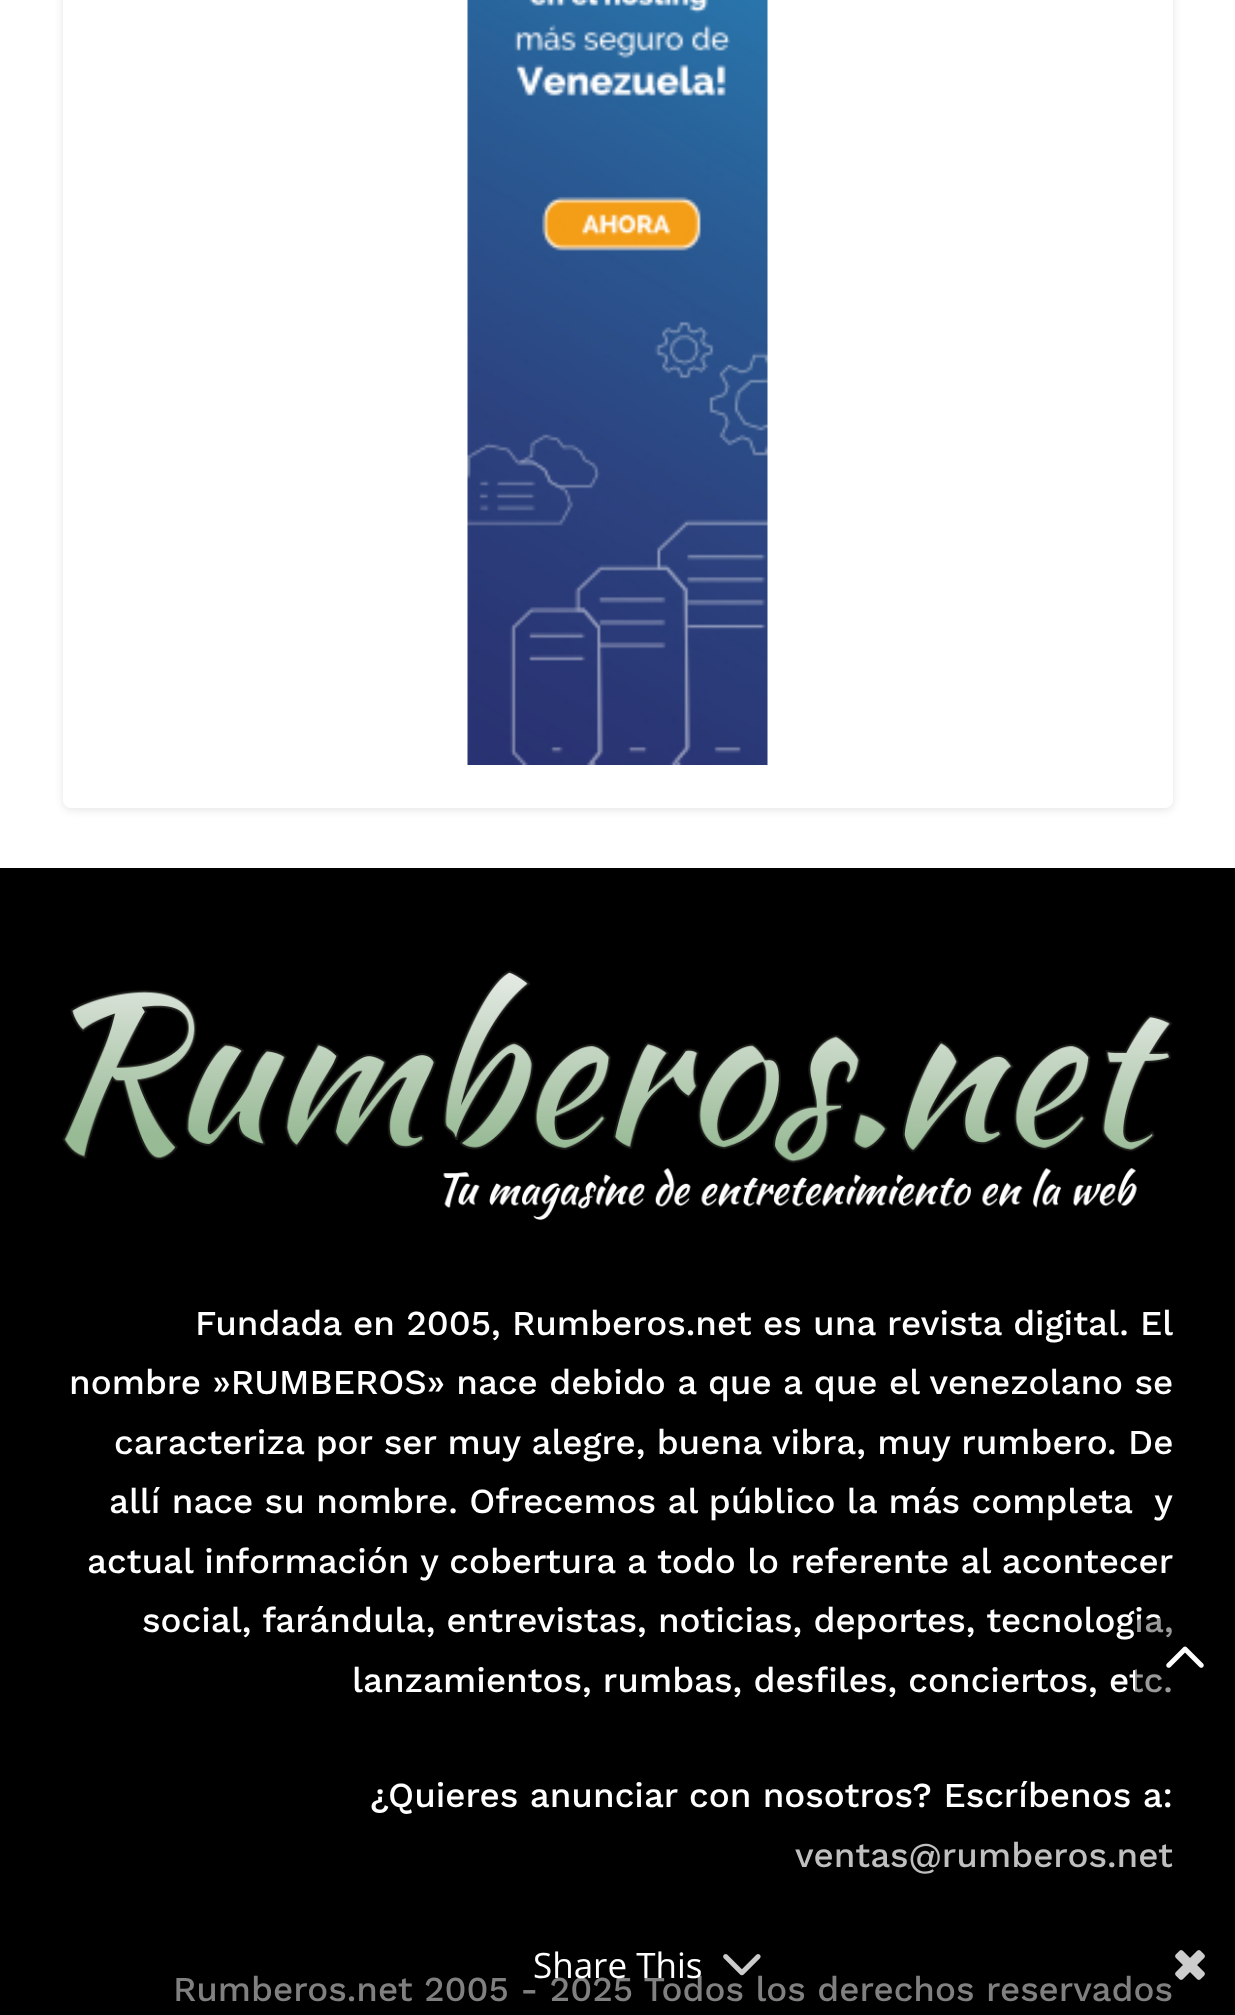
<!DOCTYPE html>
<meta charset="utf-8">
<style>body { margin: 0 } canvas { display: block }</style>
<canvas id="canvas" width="1235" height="2015"></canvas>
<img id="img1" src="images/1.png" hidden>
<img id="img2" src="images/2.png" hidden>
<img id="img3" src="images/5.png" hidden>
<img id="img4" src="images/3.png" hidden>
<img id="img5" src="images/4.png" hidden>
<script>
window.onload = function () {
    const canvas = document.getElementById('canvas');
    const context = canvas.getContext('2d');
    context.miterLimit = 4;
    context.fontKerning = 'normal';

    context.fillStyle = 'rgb(255, 255, 255)';
    context.fillRect(0, 0, 1235, 2015);
    context.fillStyle = 'rgba(0, 0, 0, 0.1)';
    context.filter = 'blur(4px)';
    context.beginPath();
    context.roundRect(63, -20, 1110, 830, 8);
    context.fill();
    context.filter = 'none';
    context.fillStyle = 'rgb(255, 255, 255)';
    context.beginPath();
    context.roundRect(63, -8, 1110, 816, 8);
    context.fill();
    context.drawImage(document.getElementById('img1'), 467, 0, 301, 765);
    context.fillStyle = 'rgb(0, 0, 0)';
    context.fillRect(0, 868, 1235, 1147);
    context.drawImage(document.getElementById('img2'), 62, 970, 1110, 250);
    context.drawImage(document.getElementById('img3'), 1175, 1950, 30, 30);
    context.font = '500 35px Work Sans';
    context.fillStyle = 'rgb(255, 255, 255)';
    context.fillText('Fundada en 2005, Rumberos.net es una revista digital. El', 195, 1335);
    context.fillText('nombre »RUMBEROS» nace debido a que a que el venezolano se', 69, 1394);
    context.fillText('caracteriza por ser muy alegre, buena vibra, muy rumbero. De', 114, 1454);
    context.fillText('allí nace su nombre. Ofrecemos al público la más completa  y', 109, 1513);
    context.fillText('actual información y cobertura a todo lo referente al acontecer', 87, 1573);
    context.fillText('social, farándula, entrevistas, noticias, deportes, tecnologia,', 142, 1632);
    context.fillText('lanzamientos, rumbas, desfiles, conciertos, etc.', 352, 1692);
    context.fillText('¿Quieres anunciar con nosotros? Escríbenos a:', 370, 1807);
    context.fillStyle = 'rgb(191, 191, 191)';
    context.fillText('ventas@rumberos.net', 795, 1867);
    context.fillStyle = 'rgb(128, 128, 128)';
    context.fillText('Rumberos.net 2005 - 2025 Todos los derechos reservados', 173, 2001);
    context.fillStyle = 'rgba(0, 0, 0, 0.4)';
    context.beginPath();
    context.roundRect(1135, 1618, 100, 85, [8, 0, 0, 8]);
    context.fill();
    context.drawImage(document.getElementById('img4'), 1166, 1646, 38, 22);
    context.font = '35px Open Sans';
    context.fillStyle = 'rgb(255, 255, 255)';
    context.fillText('Share This', 533, 1978);
    context.drawImage(document.getElementById('img5'), 723, 1954, 38, 22);
};
</script>
